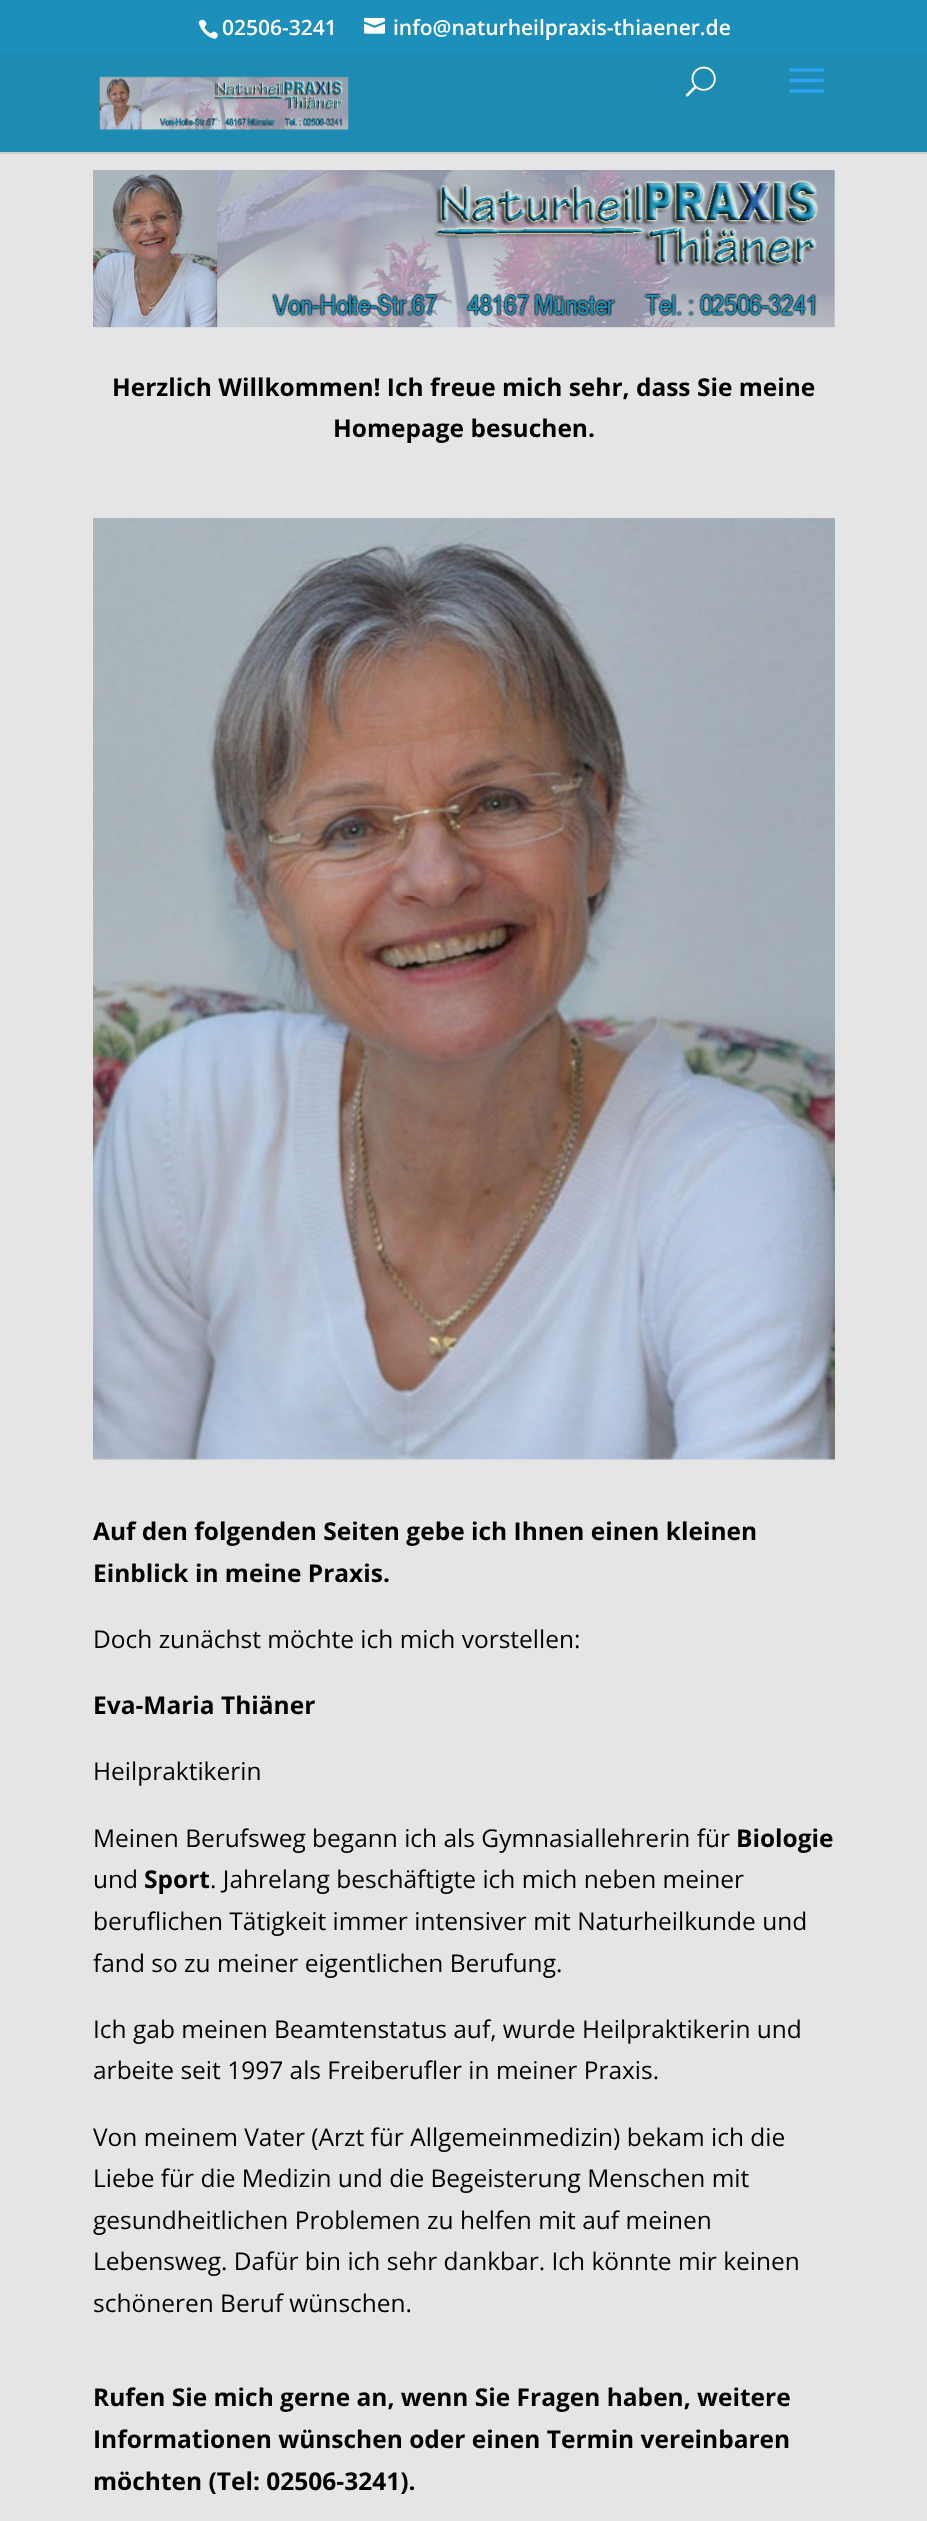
<!DOCTYPE html>
<meta charset="utf-8">
<style>body { margin: 0 } canvas { display: block }</style>
<canvas id="canvas" width="927" height="2521"></canvas>
<img id="img1" src="images/1.png" hidden>
<img id="img2" src="images/2.png" hidden>
<img id="img3" src="images/3.png" hidden>
<img id="img4" src="images/4.png" hidden>
<img id="img5" src="images/5.png" hidden>
<img id="img6" src="images/6.png" hidden>
<img id="img7" src="images/7.png" hidden>
<script>
window.onload = function () {
    const canvas = document.getElementById('canvas');
    const context = canvas.getContext('2d');
    context.miterLimit = 4;
    context.fontKerning = 'normal';

    context.fillStyle = 'rgb(28, 143, 187)';
    context.fillRect(0, 0, 927, 2521);
    context.drawImage(document.getElementById('img1'), 198, 19, 20, 20);
    context.drawImage(document.getElementById('img2'), 364, 17, 21, 17);
    context.fillStyle = 'rgb(206, 206, 206)';
    context.beginPath();
    context.moveTo(0, 152);
    context.lineTo(0, 154);
    context.lineTo(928, 154);
    context.lineTo(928, 56);
    context.lineTo(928, 152);
    context.closePath();
    context.fill();
    context.fillStyle = 'rgb(30, 140, 178)';
    context.fillRect(0, 54, 927, 98);
    context.drawImage(document.getElementById('img3'), 99, 76, 250, 55);
    context.drawImage(document.getElementById('img4'), 685, 66, 31, 31);
    context.drawImage(document.getElementById('img5'), 789, 68, 36, 25);
    context.fillStyle = 'rgb(229, 229, 229)';
    context.fillRect(0, 154, 927, 2367);
    context.drawImage(document.getElementById('img6'), 93, 170, 742, 158);
    context.drawImage(document.getElementById('img7'), 93, 518, 742, 942);
    context.font = '600 21px Open Sans';
    context.fillStyle = 'rgb(255, 255, 255)';
    context.fillText('02506-3241', 222, 35);
    context.fillText('info@naturheilpraxis-thiaener.de', 393, 35);
    context.font = 'bold 24.5px Open Sans';
    context.fillStyle = 'rgb(0, 0, 0)';
    context.fillText('Herzlich Willkommen! Ich freue mich sehr, dass Sie meine', 112, 396);
    context.fillText('Homepage besuchen.', 333, 437);
    context.fillText('Auf den folgenden Seiten gebe ich Ihnen einen kleinen', 93, 1540);
    context.fillText('Einblick in meine Praxis.', 93, 1582);
    context.font = '24.5px Open Sans';
    context.fillText('Doch zunächst möchte ich mich vorstellen:', 93, 1648);
    context.font = 'bold 24.5px Open Sans';
    context.fillText('Eva-Maria Thiäner', 93, 1714);
    context.font = '24.5px Open Sans';
    context.fillText('Heilpraktikerin', 93, 1780);
    context.fillText('Meinen Berufsweg begann ich als Gymnasiallehrerin für', 93, 1847);
    context.font = 'bold 24.5px Open Sans';
    context.fillText('Biologie', 736, 1847);
    context.font = '24.5px Open Sans';
    context.fillText('und', 93, 1888);
    context.font = 'bold 24.5px Open Sans';
    context.fillText('Sport', 144, 1888);
    context.font = '24.5px Open Sans';
    context.fillText('. Jahrelang beschäftigte ich mich neben meiner', 210, 1888);
    context.fillText('beruflichen Tätigkeit immer intensiver mit Naturheilkunde und', 93, 1930);
    context.fillText('fand so zu meiner eigentlichen Berufung.', 93, 1972);
    context.fillText('Ich gab meinen Beamtenstatus auf, wurde Heilpraktikerin und', 93, 2038);
    context.fillText('arbeite seit 1997 als Freiberufler in meiner Praxis.', 93, 2079);
    context.fillText('Von meinem Vater (Arzt für Allgemeinmedizin) bekam ich die', 93, 2146);
    context.fillText('Liebe für die Medizin und die Begeisterung Menschen mit', 93, 2187);
    context.fillText('gesundheitlichen Problemen zu helfen mit auf meinen', 93, 2229);
    context.fillText('Lebensweg. Dafür bin ich sehr dankbar. Ich könnte mir keinen', 93, 2270);
    context.fillText('schöneren Beruf wünschen.', 93, 2312);
    context.font = 'bold 24.5px Open Sans';
    context.fillText('Rufen Sie mich gerne an, wenn Sie Fragen haben, weitere', 93, 2406);
    context.fillText('Informationen wünschen oder einen Termin vereinbaren', 93, 2448);
    context.fillText('möchten (Tel: 02506-3241).', 93, 2490);
};
</script>
